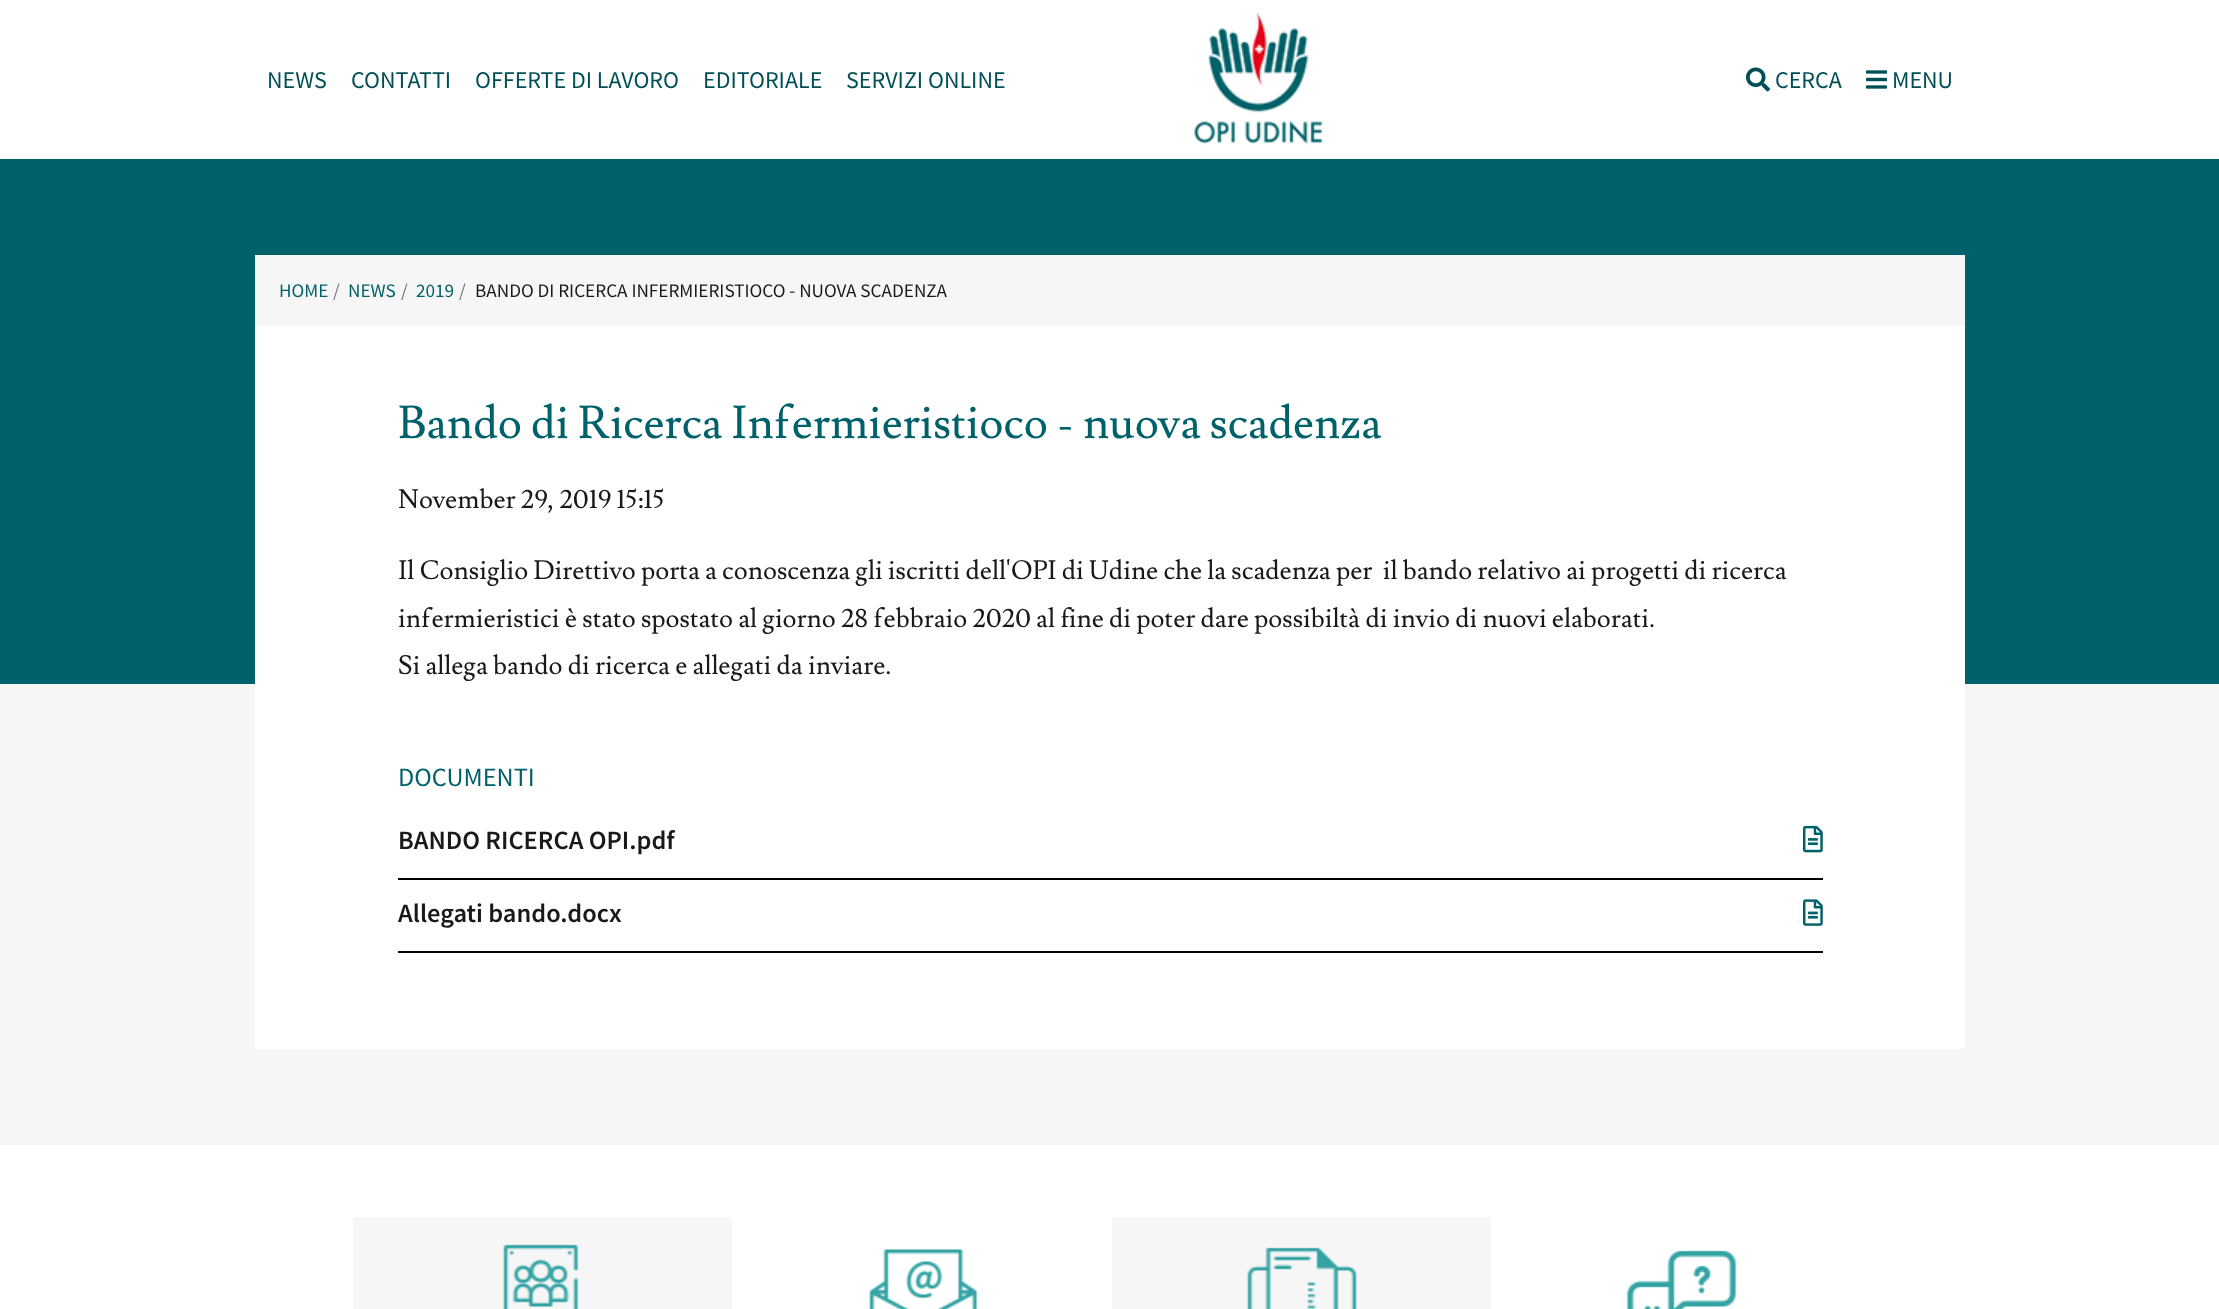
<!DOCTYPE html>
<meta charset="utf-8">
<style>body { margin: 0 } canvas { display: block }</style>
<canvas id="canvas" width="2219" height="1309"></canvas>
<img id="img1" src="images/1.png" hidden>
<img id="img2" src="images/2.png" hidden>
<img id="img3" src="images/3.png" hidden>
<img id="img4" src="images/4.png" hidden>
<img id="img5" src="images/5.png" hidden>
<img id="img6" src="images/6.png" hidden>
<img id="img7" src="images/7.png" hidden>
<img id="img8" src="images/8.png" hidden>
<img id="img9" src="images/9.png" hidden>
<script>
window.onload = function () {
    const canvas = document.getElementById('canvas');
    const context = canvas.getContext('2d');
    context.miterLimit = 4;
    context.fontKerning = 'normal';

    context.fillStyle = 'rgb(255, 255, 255)';
    context.fillRect(0, 0, 2219, 1309);
    context.drawImage(document.getElementById('img1'), 1193, 12, 131, 133);
    context.drawImage(document.getElementById('img2'), 1746, 67, 24, 25);
    context.drawImage(document.getElementById('img3'), 1866, 70, 21, 19);
    context.fillStyle = 'rgb(1, 97, 106)';
    context.fillRect(0, 159, 2219, 525);
    context.fillStyle = 'rgb(246, 246, 246)';
    context.fillRect(0, 684, 2219, 461);
    context.fillStyle = 'rgb(255, 255, 255)';
    context.fillRect(255, 326, 1710, 723);
    context.fillStyle = 'rgb(246, 246, 246)';
    context.fillRect(255, 255, 1710, 71);
    context.fillStyle = 'rgb(0, 0, 0)';
    context.fillRect(398, 878, 1425, 2);
    context.drawImage(document.getElementById('img4'), 1803, 825, 20, 28);
    context.fillRect(398, 951, 1425, 2);
    context.drawImage(document.getElementById('img5'), 1803, 899, 20, 27);
    context.fillStyle = 'rgb(246, 246, 246)';
    context.fillRect(353, 1217, 379, 92);
    context.drawImage(document.getElementById('img6'), 503, 1244, 76, 65);
    context.drawImage(document.getElementById('img7'), 869, 1249, 109, 60);
    context.fillRect(1112, 1217, 379, 92);
    context.drawImage(document.getElementById('img8'), 1247, 1247, 110, 62);
    context.drawImage(document.getElementById('img9'), 1626, 1250, 111, 59);
    context.font = '24px Source Sans Pro';
    context.fillStyle = 'rgb(1, 79, 86)';
    context.fillText('NEWS', 267, 88);
    context.fillText('CONTATTI', 351, 88);
    context.fillText('OFFERTE DI LAVORO', 475, 88);
    context.fillText('EDITORIALE', 703, 88);
    context.fillText('SERVIZI ONLINE', 846, 88);
    context.fillText('CERCA', 1775, 88);
    context.fillText('MENU', 1892, 88);
    context.font = '19.2px Source Sans Pro';
    context.fillStyle = 'rgb(1, 97, 106)';
    context.fillText('HOME', 279, 297);
    context.fillStyle = 'rgb(108, 117, 125)';
    context.fillText('/', 333, 297);
    context.fillStyle = 'rgb(1, 97, 106)';
    context.fillText('NEWS', 348, 297);
    context.fillStyle = 'rgb(108, 117, 125)';
    context.fillText('/', 401, 297);
    context.fillStyle = 'rgb(1, 97, 106)';
    context.fillText('2019', 416, 297);
    context.fillStyle = 'rgb(108, 117, 125)';
    context.fillText('/', 459, 297);
    context.fillStyle = 'rgb(23, 26, 26)';
    context.fillText('BANDO DI RICERCA INFERMIERISTIOCO - NUOVA SCADENZA', 475, 297);
    context.font = '45.6px Lusitana';
    context.fillStyle = 'rgb(1, 97, 106)';
    context.fillText('Bando di Ricerca Infermieristioco - nuova scadenza', 398, 438);
    context.font = '26.4px Lusitana';
    context.fillStyle = 'rgb(23, 26, 26)';
    context.fillText('November 29, 2019 15:15', 398, 508);
    context.fillText('Il Consiglio Direttivo porta a conoscenza gli iscritti dell\'OPI di Udine che la scadenza per  il bando relativo ai progetti di ricerca', 398, 579);
    context.fillText('infermieristici è stato spostato al giorno 28 febbraio 2020 al fine di poter dare possibiltà di invio di nuovi elaborati.', 398, 627);
    context.fillText('Si allega bando di ricerca e allegati da inviare.', 398, 674);
    context.font = '26.4px Source Sans Pro';
    context.fillStyle = 'rgb(1, 97, 106)';
    context.fillText('DOCUMENTI', 398, 786);
    context.font = '600 26.4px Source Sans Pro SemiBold';
    context.fillStyle = 'rgb(23, 26, 26)';
    context.fillText('BANDO RICERCA OPI.pdf', 398, 849);
    context.fillText('Allegati bando.docx', 398, 922);
};
</script>
